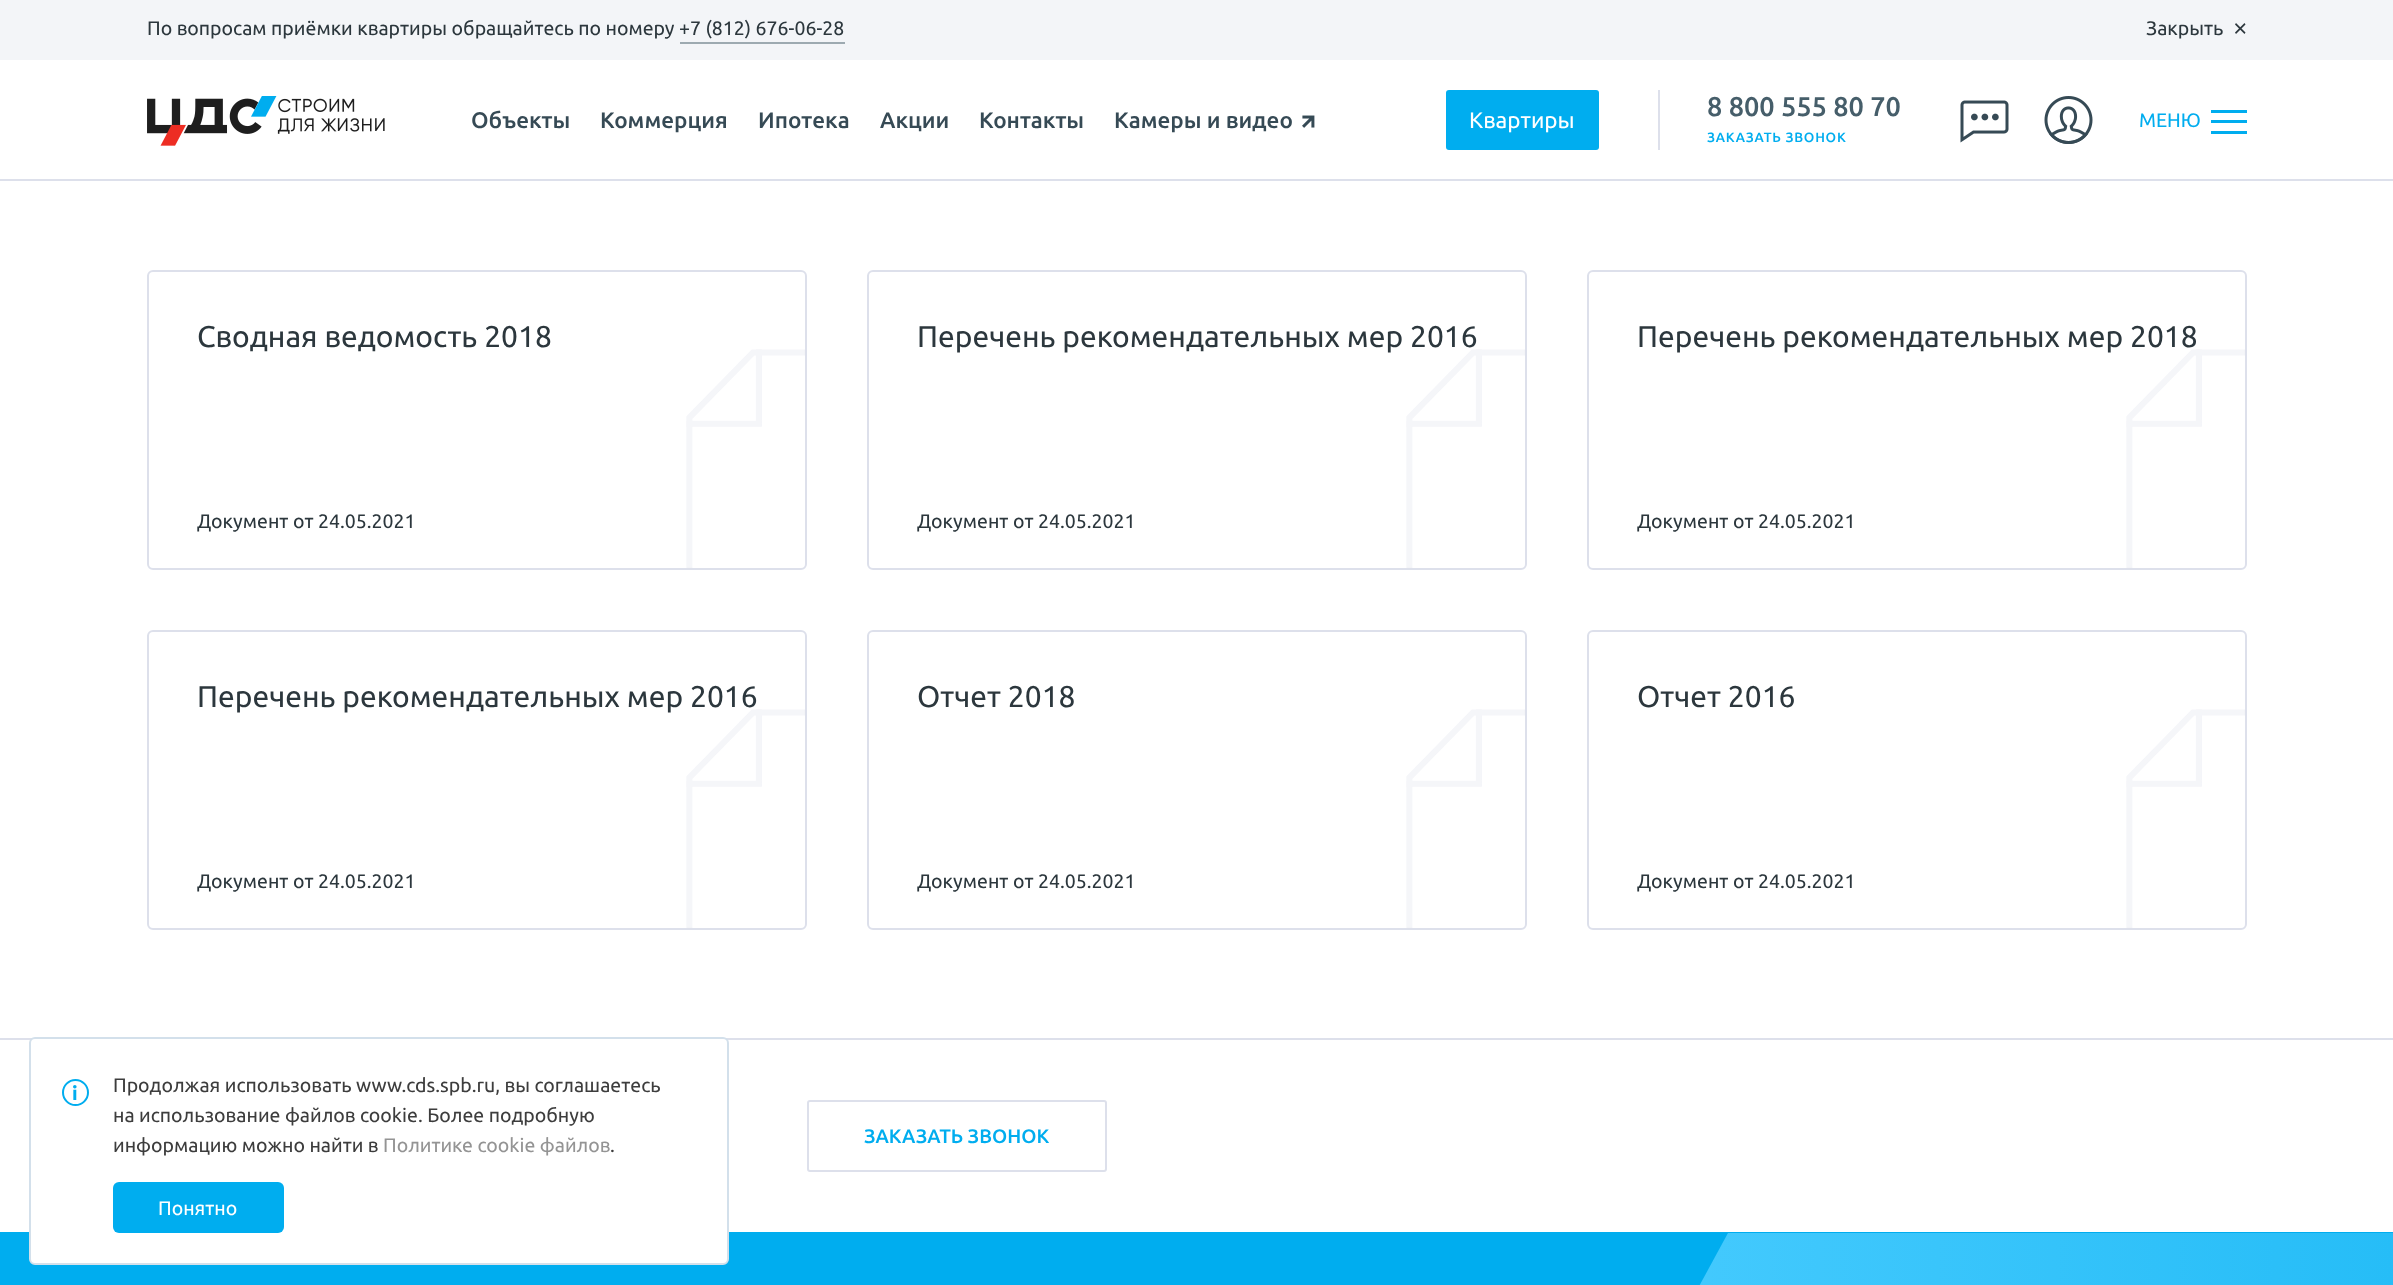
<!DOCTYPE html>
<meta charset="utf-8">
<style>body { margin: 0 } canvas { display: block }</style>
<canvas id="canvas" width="2393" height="1285"></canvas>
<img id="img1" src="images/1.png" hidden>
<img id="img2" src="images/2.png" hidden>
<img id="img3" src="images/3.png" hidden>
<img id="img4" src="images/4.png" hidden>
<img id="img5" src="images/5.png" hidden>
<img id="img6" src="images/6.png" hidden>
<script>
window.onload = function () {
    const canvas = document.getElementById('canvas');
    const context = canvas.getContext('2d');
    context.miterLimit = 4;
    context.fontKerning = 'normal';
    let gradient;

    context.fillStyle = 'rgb(255, 255, 255)';
    context.fillRect(0, 0, 2393, 1285);
    context.fillStyle = 'rgb(243, 245, 248)';
    context.fillRect(0, 0, 2393, 60);
    context.fillStyle = 'rgb(157, 170, 177)';
    context.fillRect(680, 42, 165, 2);
    context.fillStyle = 'rgb(44, 55, 61)';
    context.beginPath();
    context.moveTo(2236, 23);
    context.lineTo(2245.5, 32.5);
    context.lineTo(2244.5, 34);
    context.lineTo(2235, 24.5);
    context.closePath();
    context.fill();
    context.beginPath();
    context.moveTo(2235, 32.5);
    context.lineTo(2244.5, 23);
    context.lineTo(2245.5, 24.5);
    context.lineTo(2236, 34);
    context.closePath();
    context.fill();
    context.drawImage(document.getElementById('img1'), 147, 96, 238, 50);
    context.drawImage(document.getElementById('img2'), 1302, 115, 13, 13);
    context.fillStyle = 'rgb(0, 173, 239)';
    context.beginPath();
    context.roundRect(1446, 90, 153, 60, 3);
    context.fill();
    context.fillStyle = 'rgb(221, 224, 235)';
    context.fillRect(1658, 90, 2, 60);
    context.drawImage(document.getElementById('img3'), 1960, 100, 49, 43);
    context.drawImage(document.getElementById('img4'), 2044, 96, 49, 48);
    context.fillStyle = 'rgb(0, 173, 239)';
    context.fillRect(2211, 131, 36, 3);
    context.fillRect(2211, 110, 36, 3);
    context.fillRect(2211, 120, 36, 3);
    context.fillStyle = 'rgb(221, 224, 235)';
    context.fillRect(0, 179, 2393, 2);
    context.drawImage(document.getElementById('img5'), 686, 349, 119, 219);
    context.beginPath();
    context.roundRect(148, 271, 658, 298, 5);
    context.strokeStyle = 'rgb(221, 224, 235)';
    context.lineWidth = 2;
    context.stroke();
    context.drawImage(document.getElementById('img5'), 1406, 349, 119, 219);
    context.beginPath();
    context.roundRect(868, 271, 658, 298, 5);
    context.stroke();
    context.drawImage(document.getElementById('img5'), 2126, 349, 119, 219);
    context.beginPath();
    context.roundRect(1588, 271, 658, 298, 5);
    context.stroke();
    context.drawImage(document.getElementById('img6'), 686, 709, 119, 219);
    context.beginPath();
    context.roundRect(148, 631, 658, 298, 5);
    context.stroke();
    context.drawImage(document.getElementById('img6'), 1406, 709, 119, 219);
    context.beginPath();
    context.roundRect(868, 631, 658, 298, 5);
    context.stroke();
    context.drawImage(document.getElementById('img6'), 2126, 709, 119, 219);
    context.beginPath();
    context.roundRect(1588, 631, 658, 298, 5);
    context.stroke();
    context.fillRect(0, 1038, 2393, 2);
    context.fillStyle = 'rgb(0, 173, 239)';
    context.fillRect(0, 1232, 2393, 53);
    context.fillStyle = 'rgb(255, 255, 255)';
    context.beginPath();
    context.roundRect(30, 1038, 698, 226, 5);
    context.fill();
    context.strokeStyle = 'rgb(211, 224, 235)';
    context.stroke();
    context.beginPath();
    context.arc(75.5, 1092.5, 12.5, 0, 2 * Math.PI);
    context.strokeStyle = 'rgb(0, 173, 239)';
    context.stroke();
    context.fillStyle = 'rgb(0, 173, 239)';
    context.beginPath();
    context.roundRect(113, 1182, 171, 51, 6);
    context.fill();
    context.beginPath();
    context.roundRect(808, 1101, 298, 70, 2);
    context.strokeStyle = 'rgb(221, 224, 235)';
    context.stroke();
    gradient = context.createLinearGradient(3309, 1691, 1479, 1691);
    gradient.addColorStop(0, 'rgb(0, 173, 239)');
    gradient.addColorStop(1, 'rgb(76, 205, 255)');
    context.fillStyle = gradient;
    context.beginPath();
    context.moveTo(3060, 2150);
    context.lineTo(1230, 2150);
    context.lineTo(1728, 1233);
    context.lineTo(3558, 1233);
    context.closePath();
    context.fill();
    context.font = '19.5px Ubuntu';
    context.fillStyle = 'rgb(44, 55, 61)';
    context.fillText('По вопросам приёмки квартиры обращайтесь по номеру +7 (812) 676-06-28', 147, 35);
    context.fillText('Закрыть', 2146, 35);
    context.font = '500 22.5px Ubuntu';
    context.fillStyle = 'rgb(54, 74, 85)';
    context.fillText('Объекты', 471, 128);
    context.fillText('Коммерция', 600, 128);
    context.fillText('Ипотека', 758, 128);
    context.fillText('Акции', 880, 128);
    context.fillText('Контакты', 979, 128);
    context.fillText('Камеры и видео', 1114, 128);
    context.font = '22.5px Ubuntu';
    context.fillStyle = 'rgb(255, 255, 255)';
    context.fillText('Квартиры', 1469, 128);
    context.font = '500 27px Ubuntu';
    context.fillStyle = 'rgb(70, 94, 106)';
    context.fillText('8 800 555 80 70', 1707, 116);
    context.letterSpacing = '0.75px';
    context.font = '500 13.5px Ubuntu';
    context.fillStyle = 'rgb(0, 173, 239)';
    context.fillText('ЗАКАЗАТЬ ЗВОНОК', 1707, 142);
    context.letterSpacing = '0px';
    context.font = '19.5px Ubuntu';
    context.fillText('МЕНЮ', 2139, 127);
    context.font = '30px Ubuntu';
    context.fillStyle = 'rgb(44, 55, 61)';
    context.fillText('Сводная ведомость 2018', 197, 347);
    context.font = '19.5px Ubuntu';
    context.fillText('Документ от 24.05.2021', 197, 528);
    context.font = '30px Ubuntu';
    context.fillText('Перечень рекомендательных мер 2016', 917, 347);
    context.font = '19.5px Ubuntu';
    context.fillText('Документ от 24.05.2021', 917, 528);
    context.font = '30px Ubuntu';
    context.fillText('Перечень рекомендательных мер 2018', 1637, 347);
    context.font = '19.5px Ubuntu';
    context.fillText('Документ от 24.05.2021', 1637, 528);
    context.font = '30px Ubuntu';
    context.fillText('Перечень рекомендательных мер 2016', 197, 707);
    context.font = '19.5px Ubuntu';
    context.fillText('Документ от 24.05.2021', 197, 888);
    context.font = '30px Ubuntu';
    context.fillText('Отчет 2018', 917, 707);
    context.font = '19.5px Ubuntu';
    context.fillText('Документ от 24.05.2021', 917, 888);
    context.font = '30px Ubuntu';
    context.fillText('Отчет 2016', 1637, 707);
    context.font = '19.5px Ubuntu';
    context.fillText('Документ от 24.05.2021', 1637, 888);
    context.fillStyle = 'rgb(61, 61, 61)';
    context.fillText('Продолжая использовать www.cds.spb.ru, вы соглашаетесь', 113, 1092);
    context.font = 'bold 19.5px Ubuntu';
    context.fillStyle = 'rgb(0, 173, 239)';
    context.fillText('i', 72, 1100);
    context.font = '19.5px Ubuntu';
    context.fillStyle = 'rgb(61, 61, 61)';
    context.fillText('на использование файлов cookie. Более подробную', 113, 1122);
    context.fillText('информацию можно найти в', 113, 1152);
    context.fillStyle = 'rgb(148, 148, 148)';
    context.fillText('Политике cookie файлов', 383, 1152);
    context.fillStyle = 'rgb(61, 61, 61)';
    context.fillText('.', 610, 1152);
    context.fillStyle = 'rgb(255, 255, 255)';
    context.fillText('Понятно', 158, 1215);
    context.font = '500 19.5px Ubuntu';
    context.fillStyle = 'rgb(0, 173, 239)';
    context.fillText('ЗАКАЗАТЬ ЗВОНОК', 864, 1143);
};
</script>
